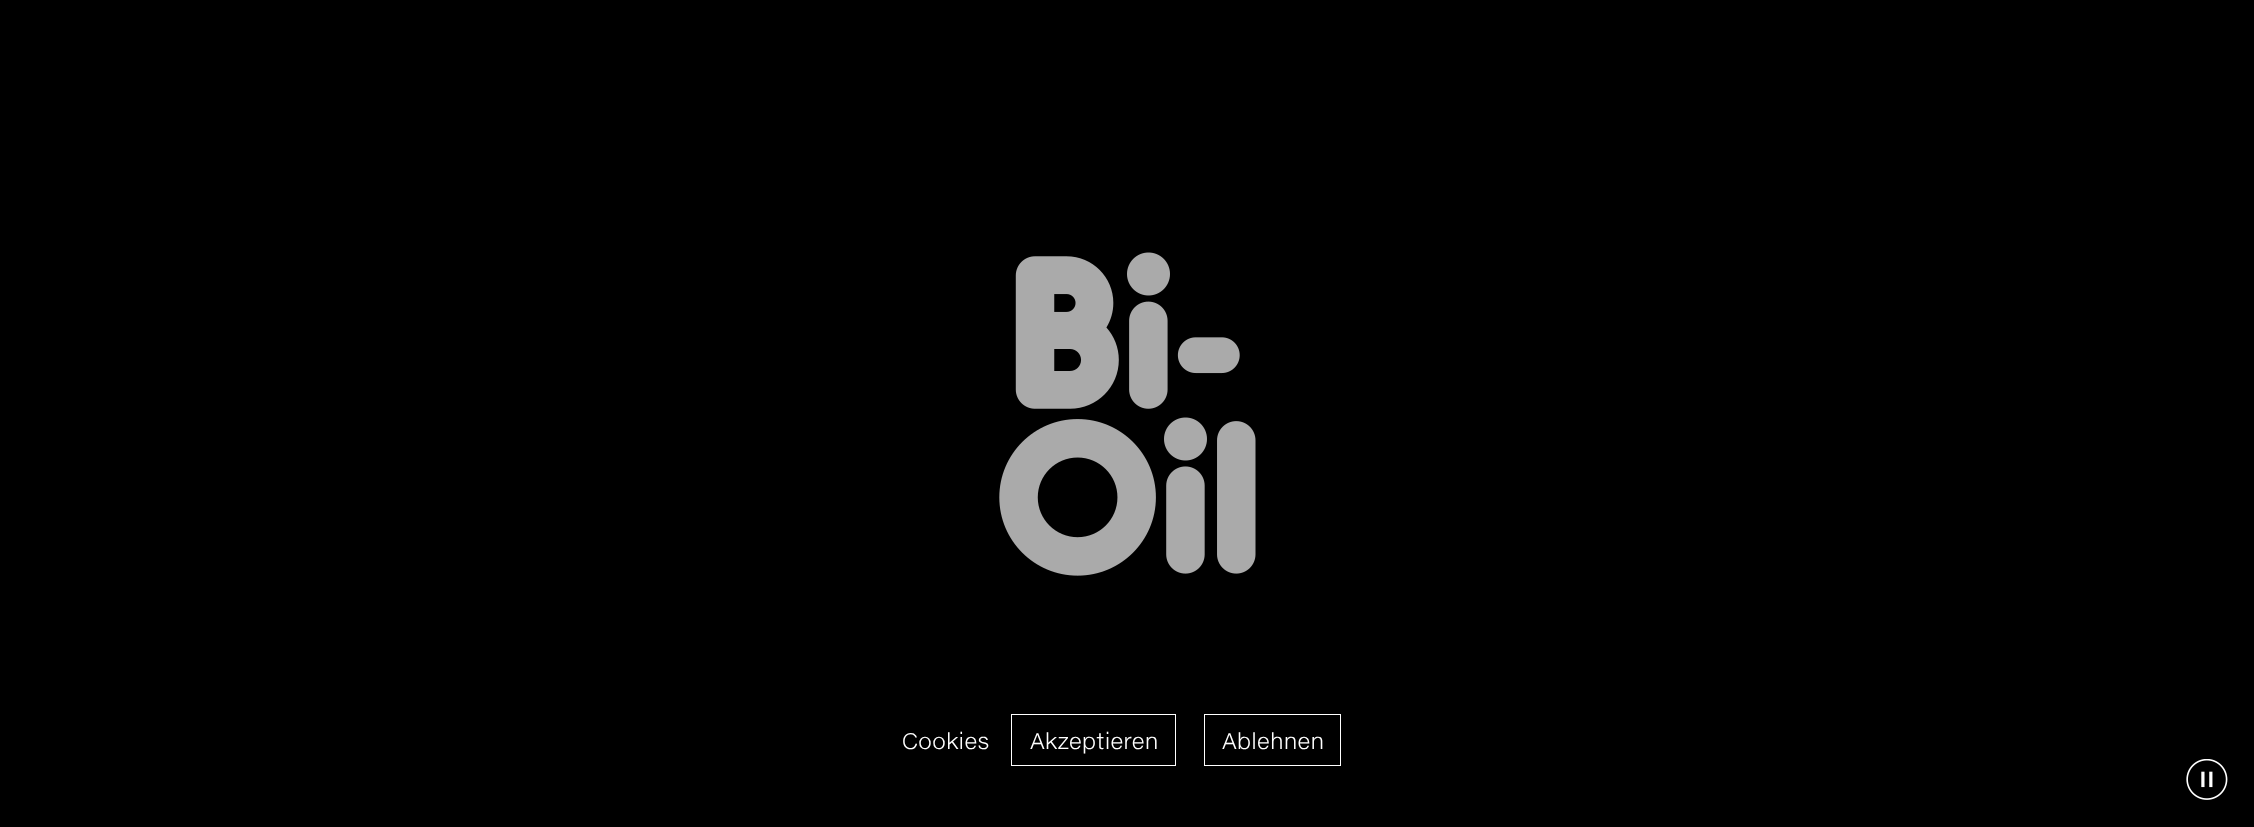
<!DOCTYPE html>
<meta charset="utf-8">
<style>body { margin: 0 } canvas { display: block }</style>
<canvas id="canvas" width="2254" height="827"></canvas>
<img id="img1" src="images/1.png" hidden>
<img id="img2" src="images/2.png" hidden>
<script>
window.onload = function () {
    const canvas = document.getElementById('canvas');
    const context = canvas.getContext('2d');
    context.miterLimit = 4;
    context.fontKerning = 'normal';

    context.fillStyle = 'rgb(0, 0, 0)';
    context.fillRect(0, 0, 2254, 827);
    context.drawImage(document.getElementById('img1'), 999, 252, 257, 324);
    context.strokeStyle = 'rgb(255, 255, 255)';
    context.strokeRect(1011.5, 714.5, 164, 51);
    context.strokeRect(1204.5, 714.5, 136, 51);
    context.drawImage(document.getElementById('img2'), 2186, 759, 42, 41);
    context.font = '300 22px "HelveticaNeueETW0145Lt"';
    context.fillStyle = 'rgb(255, 255, 255)';
    context.fillText('Cookies', 902, 749);
    context.fillText('Akzeptieren', 1030, 749);
    context.fillText('Ablehnen', 1222, 749);
};
</script>
